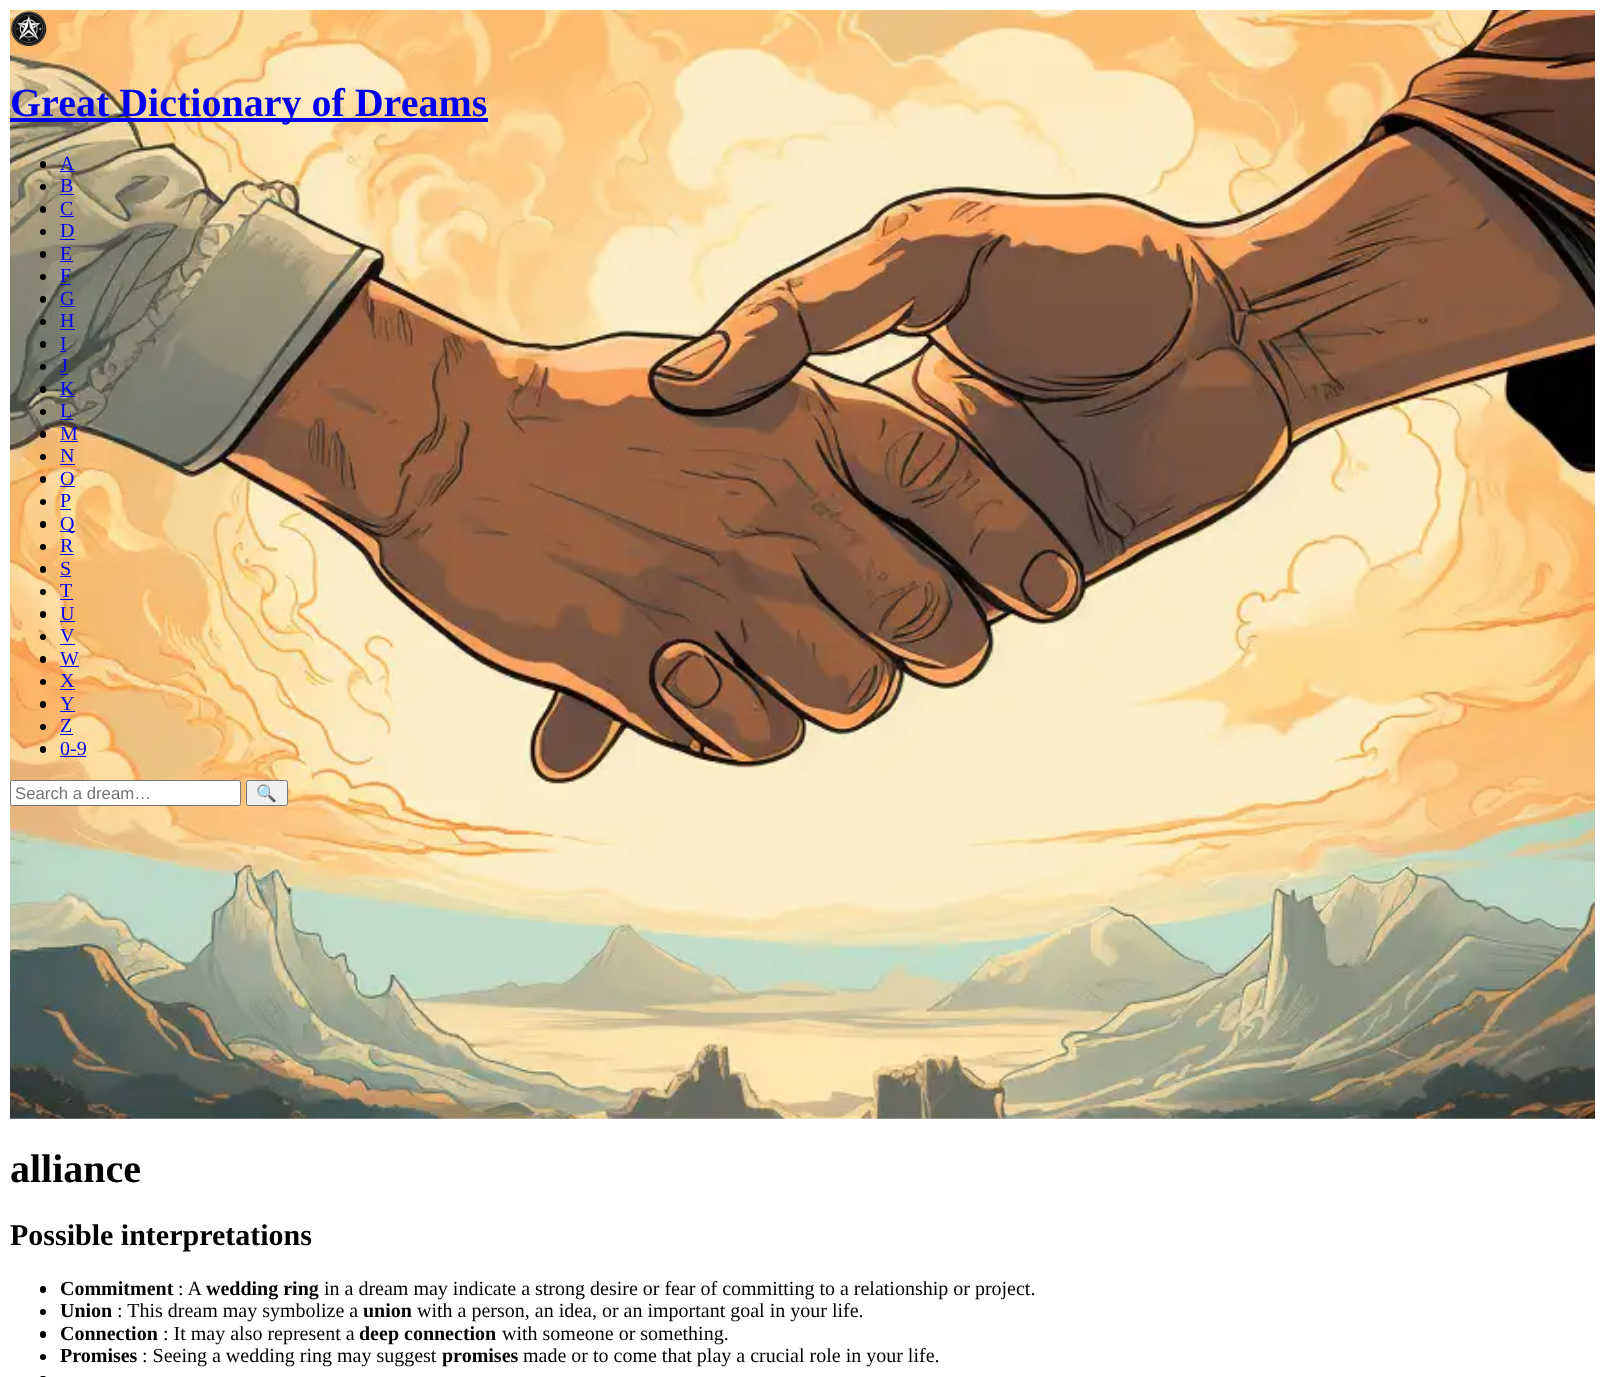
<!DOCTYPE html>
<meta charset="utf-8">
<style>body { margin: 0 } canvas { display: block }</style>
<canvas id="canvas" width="1605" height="1377"></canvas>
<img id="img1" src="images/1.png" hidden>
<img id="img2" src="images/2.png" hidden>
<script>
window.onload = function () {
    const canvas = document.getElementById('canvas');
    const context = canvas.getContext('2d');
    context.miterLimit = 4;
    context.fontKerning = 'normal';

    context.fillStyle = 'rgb(255, 255, 255)';
    context.fillRect(0, 0, 1605, 1377);
    context.drawImage(document.getElementById('img1'), 10, 10, 1585, 1109);
    context.drawImage(document.getElementById('img2'), 10, 11, 37, 35);
    context.fillStyle = 'rgb(0, 0, 238)';
    context.fillRect(10, 118, 478, 4);
    context.fillStyle = 'rgb(0, 0, 0)';
    context.beginPath();
    context.roundRect(40, 161, 6, 7, 3);
    context.fill();
    context.fillStyle = 'rgb(0, 0, 238)';
    context.fillRect(60, 171, 15, 1);
    context.fillStyle = 'rgb(0, 0, 0)';
    context.beginPath();
    context.arc(43, 187, 3, 0, 2 * Math.PI);
    context.fill();
    context.fillStyle = 'rgb(0, 0, 238)';
    context.fillRect(60, 194, 14, 1);
    context.fillStyle = 'rgb(0, 0, 0)';
    context.beginPath();
    context.roundRect(40, 206, 6, 7, 3);
    context.fill();
    context.fillStyle = 'rgb(0, 0, 238)';
    context.fillRect(60, 216, 14, 1);
    context.fillStyle = 'rgb(0, 0, 0)';
    context.beginPath();
    context.arc(43, 232, 3, 0, 2 * Math.PI);
    context.fill();
    context.fillStyle = 'rgb(0, 0, 238)';
    context.fillRect(60, 239, 15, 1);
    context.fillStyle = 'rgb(0, 0, 0)';
    context.beginPath();
    context.roundRect(40, 251, 6, 7, 3);
    context.fill();
    context.fillStyle = 'rgb(0, 0, 238)';
    context.fillRect(60, 261, 13, 1);
    context.fillStyle = 'rgb(0, 0, 0)';
    context.beginPath();
    context.arc(43, 277, 3, 0, 2 * Math.PI);
    context.fill();
    context.fillStyle = 'rgb(0, 0, 238)';
    context.fillRect(60, 284, 11, 1);
    context.fillStyle = 'rgb(0, 0, 0)';
    context.beginPath();
    context.roundRect(40, 296, 6, 7, 3);
    context.fill();
    context.fillStyle = 'rgb(0, 0, 238)';
    context.fillRect(60, 306, 15, 1);
    context.fillStyle = 'rgb(0, 0, 0)';
    context.beginPath();
    context.arc(43, 322, 3, 0, 2 * Math.PI);
    context.fill();
    context.fillStyle = 'rgb(0, 0, 238)';
    context.fillRect(60, 329, 15, 1);
    context.fillStyle = 'rgb(0, 0, 0)';
    context.beginPath();
    context.roundRect(40, 341, 6, 7, 3);
    context.fill();
    context.fillStyle = 'rgb(0, 0, 238)';
    context.fillRect(60, 351, 6, 1);
    context.fillStyle = 'rgb(0, 0, 0)';
    context.beginPath();
    context.arc(43, 367, 3, 0, 2 * Math.PI);
    context.fill();
    context.fillStyle = 'rgb(0, 0, 238)';
    context.fillRect(60, 374, 8, 1);
    context.fillStyle = 'rgb(0, 0, 0)';
    context.beginPath();
    context.roundRect(40, 386, 6, 7, 3);
    context.fill();
    context.fillStyle = 'rgb(0, 0, 238)';
    context.fillRect(60, 396, 15, 1);
    context.fillStyle = 'rgb(0, 0, 0)';
    context.beginPath();
    context.arc(43, 412, 3, 0, 2 * Math.PI);
    context.fill();
    context.fillStyle = 'rgb(0, 0, 238)';
    context.fillRect(60, 419, 13, 1);
    context.fillStyle = 'rgb(0, 0, 0)';
    context.beginPath();
    context.roundRect(40, 431, 6, 7, 3);
    context.fill();
    context.fillStyle = 'rgb(0, 0, 238)';
    context.fillRect(60, 441, 18, 1);
    context.fillStyle = 'rgb(0, 0, 0)';
    context.beginPath();
    context.arc(43, 457, 3, 0, 2 * Math.PI);
    context.fill();
    context.fillStyle = 'rgb(0, 0, 238)';
    context.fillRect(60, 464, 15, 1);
    context.fillStyle = 'rgb(0, 0, 0)';
    context.beginPath();
    context.roundRect(40, 476, 6, 7, 3);
    context.fill();
    context.fillStyle = 'rgb(0, 0, 238)';
    context.fillRect(60, 486, 15, 1);
    context.fillStyle = 'rgb(0, 0, 0)';
    context.beginPath();
    context.arc(43, 502, 3, 0, 2 * Math.PI);
    context.fill();
    context.fillStyle = 'rgb(0, 0, 238)';
    context.fillRect(60, 509, 11, 1);
    context.fillStyle = 'rgb(0, 0, 0)';
    context.beginPath();
    context.roundRect(40, 521, 6, 7, 3);
    context.fill();
    context.fillStyle = 'rgb(0, 0, 238)';
    context.fillRect(60, 531, 15, 1);
    context.fillStyle = 'rgb(0, 0, 0)';
    context.beginPath();
    context.arc(43, 547, 3, 0, 2 * Math.PI);
    context.fill();
    context.fillStyle = 'rgb(0, 0, 238)';
    context.fillRect(60, 554, 14, 1);
    context.fillStyle = 'rgb(0, 0, 0)';
    context.beginPath();
    context.roundRect(40, 566, 6, 7, 3);
    context.fill();
    context.fillStyle = 'rgb(0, 0, 238)';
    context.fillRect(60, 576, 11, 1);
    context.fillStyle = 'rgb(0, 0, 0)';
    context.beginPath();
    context.arc(43, 592, 3, 0, 2 * Math.PI);
    context.fill();
    context.fillStyle = 'rgb(0, 0, 238)';
    context.fillRect(60, 599, 13, 1);
    context.fillStyle = 'rgb(0, 0, 0)';
    context.beginPath();
    context.roundRect(40, 611, 6, 7, 3);
    context.fill();
    context.fillStyle = 'rgb(0, 0, 238)';
    context.fillRect(60, 621, 15, 1);
    context.fillStyle = 'rgb(0, 0, 0)';
    context.beginPath();
    context.arc(43, 637, 3, 0, 2 * Math.PI);
    context.fill();
    context.fillStyle = 'rgb(0, 0, 238)';
    context.fillRect(60, 644, 15, 1);
    context.fillStyle = 'rgb(0, 0, 0)';
    context.beginPath();
    context.roundRect(40, 656, 6, 7, 3);
    context.fill();
    context.fillStyle = 'rgb(0, 0, 238)';
    context.fillRect(60, 666, 19, 1);
    context.fillStyle = 'rgb(0, 0, 0)';
    context.beginPath();
    context.arc(43, 682, 3, 0, 2 * Math.PI);
    context.fill();
    context.fillStyle = 'rgb(0, 0, 238)';
    context.fillRect(60, 689, 15, 1);
    context.fillStyle = 'rgb(0, 0, 0)';
    context.beginPath();
    context.roundRect(40, 701, 6, 7, 3);
    context.fill();
    context.fillStyle = 'rgb(0, 0, 238)';
    context.fillRect(60, 711, 15, 1);
    context.fillStyle = 'rgb(0, 0, 0)';
    context.beginPath();
    context.arc(43, 727, 3, 0, 2 * Math.PI);
    context.fill();
    context.fillStyle = 'rgb(0, 0, 238)';
    context.fillRect(60, 734, 13, 1);
    context.fillStyle = 'rgb(0, 0, 0)';
    context.beginPath();
    context.roundRect(40, 746, 6, 7, 3);
    context.fill();
    context.fillStyle = 'rgb(0, 0, 238)';
    context.fillRect(60, 756, 26, 1);
    context.fillStyle = 'rgb(255, 255, 255)';
    context.beginPath();
    context.roundRect(10.5, 780.5, 230, 25, 2);
    context.fill();
    context.strokeStyle = 'rgb(118, 118, 118)';
    context.stroke();
    context.fillStyle = 'rgb(239, 239, 239)';
    context.beginPath();
    context.roundRect(246.5, 780.5, 41, 25, 2);
    context.fill();
    context.stroke();
    context.fillStyle = 'rgb(0, 0, 0)';
    context.beginPath();
    context.roundRect(40, 1286, 6, 7, 3);
    context.fill();
    context.beginPath();
    context.arc(43, 1312, 3, 0, 2 * Math.PI);
    context.fill();
    context.beginPath();
    context.roundRect(40, 1331, 6, 7, 3);
    context.fill();
    context.beginPath();
    context.arc(43, 1357, 3, 0, 2 * Math.PI);
    context.fill();
    context.beginPath();
    context.roundRect(40, 1376, 6, 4, 3);
    context.fill();
    context.font = 'bold 40px Liberation Serif';
    context.fillStyle = 'rgb(0, 0, 238)';
    context.fillText('Great Dictionary of Dreams', 10, 116);
    context.font = '20px Liberation Serif';
    context.fillText('A', 60, 170);
    context.fillText('B', 60, 192);
    context.fillText('C', 60, 215);
    context.fillText('D', 60, 237);
    context.fillText('E', 60, 260);
    context.fillText('F', 60, 282);
    context.fillText('G', 60, 305);
    context.fillText('H', 60, 327);
    context.fillText('I', 60, 350);
    context.fillText('J', 60, 372);
    context.fillText('K', 60, 395);
    context.fillText('L', 60, 417);
    context.fillText('M', 60, 440);
    context.fillText('N', 60, 462);
    context.fillText('O', 60, 485);
    context.fillText('P', 60, 507);
    context.fillText('Q', 60, 530);
    context.fillText('R', 60, 552);
    context.fillText('S', 60, 575);
    context.fillText('T', 60, 597);
    context.fillText('U', 60, 620);
    context.fillText('V', 60, 642);
    context.fillText('W', 60, 665);
    context.fillText('X', 60, 687);
    context.fillText('Y', 60, 710);
    context.fillText('Z', 60, 732);
    context.fillText('0-9', 60, 755);
    context.font = '16.75px Liberation Sans';
    context.fillStyle = 'rgb(117, 117, 117)';
    context.fillText('Search a dream…', 15, 799);
    context.font = '16.75px Noto Color Emoji';
    context.fillStyle = 'rgb(0, 0, 0)';
    context.fillText('🔍', 256, 799);
    context.font = 'bold 40px Liberation Serif';
    context.fillText('alliance', 10, 1182);
    context.font = 'bold 30px Liberation Serif';
    context.fillText('Possible interpretations', 10, 1245);
    context.font = 'bold 20px Liberation Serif';
    context.fillText('Commitment', 60, 1295);
    context.font = '20px Liberation Serif';
    context.fillText(': A', 178, 1295);
    context.font = 'bold 20px Liberation Serif';
    context.fillText('wedding ring', 206, 1295);
    context.font = '20px Liberation Serif';
    context.fillText('in a dream may indicate a strong desire or fear of committing to a relationship or project.', 324, 1295);
    context.font = 'bold 20px Liberation Serif';
    context.fillText('Union', 60, 1317);
    context.font = '20px Liberation Serif';
    context.fillText(': This dream may symbolize a', 117, 1317);
    context.font = 'bold 20px Liberation Serif';
    context.fillText('union', 363, 1317);
    context.font = '20px Liberation Serif';
    context.fillText('with a person, an idea, or an important goal in your life.', 417, 1317);
    context.font = 'bold 20px Liberation Serif';
    context.fillText('Connection', 60, 1340);
    context.font = '20px Liberation Serif';
    context.fillText(': It may also represent a', 163, 1340);
    context.font = 'bold 20px Liberation Serif';
    context.fillText('deep connection', 359, 1340);
    context.font = '20px Liberation Serif';
    context.fillText('with someone or something.', 502, 1340);
    context.font = 'bold 20px Liberation Serif';
    context.fillText('Promises', 60, 1362);
    context.font = '20px Liberation Serif';
    context.fillText(': Seeing a wedding ring may suggest', 142, 1362);
    context.font = 'bold 20px Liberation Serif';
    context.fillText('promises', 442, 1362);
    context.font = '20px Liberation Serif';
    context.fillText('made or to come that play a crucial role in your life.', 523, 1362);
};
</script>
